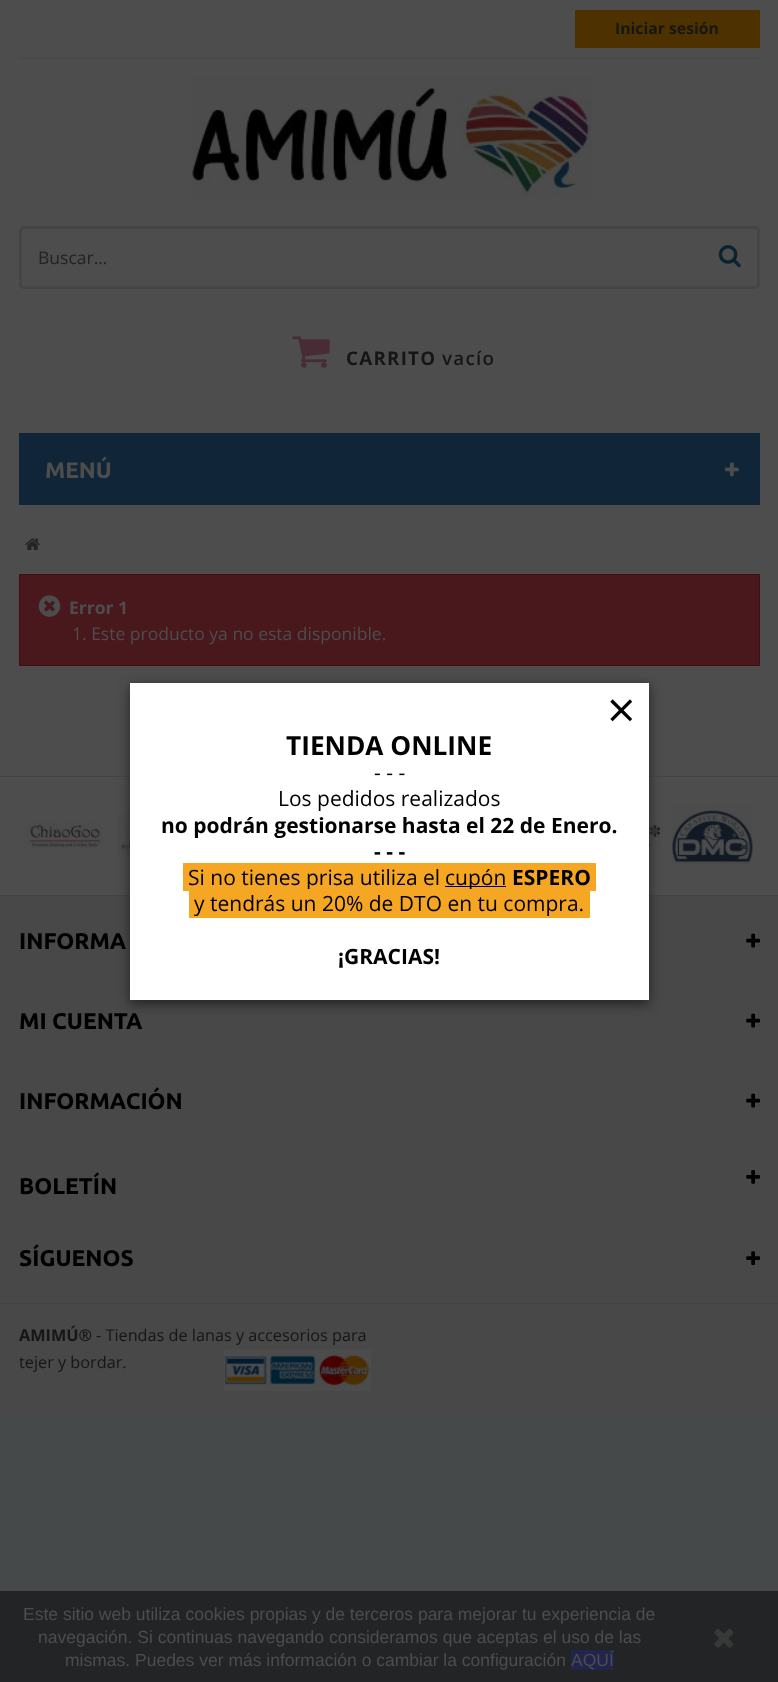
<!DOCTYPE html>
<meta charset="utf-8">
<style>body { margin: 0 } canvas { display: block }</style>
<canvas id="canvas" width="778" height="1682"></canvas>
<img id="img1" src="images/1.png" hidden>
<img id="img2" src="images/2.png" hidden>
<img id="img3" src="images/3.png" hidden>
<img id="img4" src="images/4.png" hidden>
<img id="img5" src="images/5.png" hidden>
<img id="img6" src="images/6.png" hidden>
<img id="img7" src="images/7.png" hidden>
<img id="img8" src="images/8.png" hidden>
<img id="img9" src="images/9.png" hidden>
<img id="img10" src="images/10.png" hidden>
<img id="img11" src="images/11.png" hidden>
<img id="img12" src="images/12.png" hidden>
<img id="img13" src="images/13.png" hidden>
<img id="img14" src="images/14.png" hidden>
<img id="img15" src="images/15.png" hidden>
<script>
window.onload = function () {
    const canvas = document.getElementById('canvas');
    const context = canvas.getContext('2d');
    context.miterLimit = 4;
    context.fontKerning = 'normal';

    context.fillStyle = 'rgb(69, 73, 74)';
    context.fillRect(0, 0, 778, 1682);
    context.fillStyle = 'rgb(77, 77, 77)';
    context.fillRect(0, 0, 778, 776);
    context.fillStyle = 'rgb(71, 71, 71)';
    context.fillRect(19, 58, 741, 1);
    context.fillStyle = 'rgb(77, 50, 0)';
    context.fillRect(575, 10, 185, 38);
    context.drawImage(document.getElementById('img1'), 191, 77, 401, 121);
    context.beginPath();
    context.roundRect(20.5, 227.5, 738, 60, 3.5);
    context.strokeStyle = 'rgb(69, 69, 69)';
    context.lineWidth = 3;
    context.stroke();
    context.drawImage(document.getElementById('img2'), 718, 245, 23, 23);
    context.drawImage(document.getElementById('img3'), 292, 336, 38, 32);
    context.fillStyle = 'rgb(17, 37, 56)';
    context.fillRect(19, 433, 741, 72);
    context.drawImage(document.getElementById('img4'), 725, 462, 14, 15);
    context.drawImage(document.getElementById('img5'), 25, 538, 15, 12);
    context.fillStyle = 'rgb(73, 24, 28)';
    context.beginPath();
    context.rect(19.5, 574.5, 740, 91);
    context.fill();
    context.strokeStyle = 'rgb(64, 15, 18)';
    context.lineWidth = 1;
    context.stroke();
    context.drawImage(document.getElementById('img6'), 38, 595, 23, 22);
    context.fillStyle = 'rgb(77, 77, 77)';
    context.fillRect(0, 777, 778, 118);
    context.fillStyle = 'rgb(68, 68, 68)';
    context.fillRect(0, 776, 778, 1);
    context.drawImage(document.getElementById('img7'), 25, 822, 77, 26);
    context.drawImage(document.getElementById('img8'), 118, 813, 12, 43);
    context.drawImage(document.getElementById('img9'), 649, 822, 11, 25);
    context.drawImage(document.getElementById('img10'), 672, 805, 81, 60);
    context.fillStyle = 'rgb(72, 72, 72)';
    context.fillRect(0, 896, 778, 520);
    context.fillStyle = 'rgb(67, 67, 67)';
    context.fillRect(0, 895, 778, 1);
    context.drawImage(document.getElementById('img11'), 746, 933, 14, 15);
    context.drawImage(document.getElementById('img11'), 746, 1013, 14, 15);
    context.drawImage(document.getElementById('img11'), 746, 1093, 14, 15);
    context.drawImage(document.getElementById('img12'), 746, 1170, 14, 14);
    context.drawImage(document.getElementById('img13'), 746, 1251, 14, 14);
    context.fillStyle = 'rgb(35, 36, 37)';
    context.fillRect(0, 1591, 778, 91);
    context.fillStyle = 'rgb(35, 36, 75)';
    context.fillRect(571, 1650, 43, 20);
    context.drawImage(document.getElementById('img14'), 714, 1628, 20, 20);
    context.fillStyle = 'rgb(67, 67, 67)';
    context.fillRect(0, 1303, 778, 1);
    context.drawImage(document.getElementById('img15'), 224, 1349, 147, 42);
    context.fillStyle = 'rgb(34, 34, 34)';
    context.filter = 'blur(6px)';
    context.beginPath();
    context.rect(130, 686, 519, 318);
    context.fill();
    context.filter = 'none';
    context.fillStyle = 'rgb(255, 255, 255)';
    context.fillRect(130, 683, 519, 317);
    context.fillStyle = 'rgb(245, 166, 35)';
    context.fillRect(183, 863, 262, 28);
    context.fillRect(445, 863, 61, 26);
    context.fillStyle = 'rgb(0, 0, 0)';
    context.fillRect(445, 886, 61, 1);
    context.fillStyle = 'rgb(245, 166, 35)';
    context.fillRect(506, 863, 90, 28);
    context.font = 'bold 15.75px Open Sans';
    context.fillStyle = 'rgb(22, 22, 22)';
    context.fillText('Iniciar sesión', 615, 34);
    context.font = '17.5px Open Sans';
    context.fillStyle = 'rgb(35, 35, 35)';
    context.fillText('Buscar...', 38, 264);
    context.letterSpacing = '1.25px';
    context.font = 'bold 18.75px Open Sans';
    context.fillStyle = 'rgb(22, 22, 22)';
    context.fillText('CARRITO', 346, 365);
    context.font = '600 18.75px Open Sans';
    context.fillText('vacío', 442, 365);
    context.letterSpacing = '0px';
    context.font = 'bold 22.5px Ubuntu';
    context.fillStyle = 'rgb(77, 77, 77)';
    context.fillText('MENÚ', 45, 478);
    context.font = 'bold 17.5px Open Sans';
    context.fillText('Error 1', 69, 614);
    context.font = '17.5px Open Sans';
    context.fillText('1. Este producto ya no esta disponible.', 72, 640);
    context.font = 'bold 22.75px Ubuntu';
    context.fillStyle = 'rgb(0, 0, 0)';
    context.fillText('INFORMA', 19, 949);
    context.fillText('MI CUENTA', 19, 1029);
    context.fillText('INFORMACIÓN', 19, 1109);
    context.fillText('BOLETÍN', 19, 1194);
    context.fillText('SÍGUENOS', 19, 1266);
    context.font = '17.5px Liberation Sans';
    context.fillStyle = 'rgb(77, 77, 77)';
    context.fillText('Este sitio web utiliza cookies propias y de terceros para mejorar tu experiencia de', 23, 1620);
    context.fillText('navegación. Si continuas navegando consideramos que aceptas el uso de las', 38, 1643);
    context.fillText('mismas. Puedes ver más información o cambiar la configuración', 65, 1666);
    context.fillText('AQUÍ', 571, 1666);
    context.font = 'bold 16.25px Open Sans';
    context.fillStyle = 'rgb(22, 22, 22)';
    context.fillText('AMIMÚ®', 19, 1341);
    context.font = '16.25px Open Sans';
    context.fillText('- Tiendas de lanas y accesorios para', 96, 1341);
    context.fillText('tejer y bordar.', 19, 1368);
    context.font = '50px Open Sans';
    context.fillStyle = 'rgb(0, 0, 0)';
    context.fillText('×', 607, 728);
    context.font = 'bold 26.25px Open Sans';
    context.fillText('TIENDA ONLINE', 286, 755);
    context.font = '21px Open Sans';
    context.fillText('- - -', 374, 780);
    context.fillText('Los pedidos realizados', 278, 806);
    context.font = 'bold 21px Open Sans';
    context.fillText('no podrán gestionarse hasta el 22 de Enero.', 161, 833);
    context.fillText('- - -', 374, 859);
    context.font = '21px Open Sans';
    context.fillText('Si no tienes prisa utiliza el', 188, 885);
    context.fillText('cupón', 445, 885);
    context.font = 'bold 21px Open Sans';
    context.fillText('ESPERO', 512, 885);
    context.fillStyle = 'rgb(245, 166, 35)';
    context.fillRect(189, 889, 401, 29);
    context.font = '21px Open Sans';
    context.fillStyle = 'rgb(0, 0, 0)';
    context.fillText('y tendrás un 20% de DTO en tu compra.', 194, 911);
    context.font = 'bold 21px Open Sans';
    context.fillText('¡GRACIAS!', 338, 964);
};
</script>
